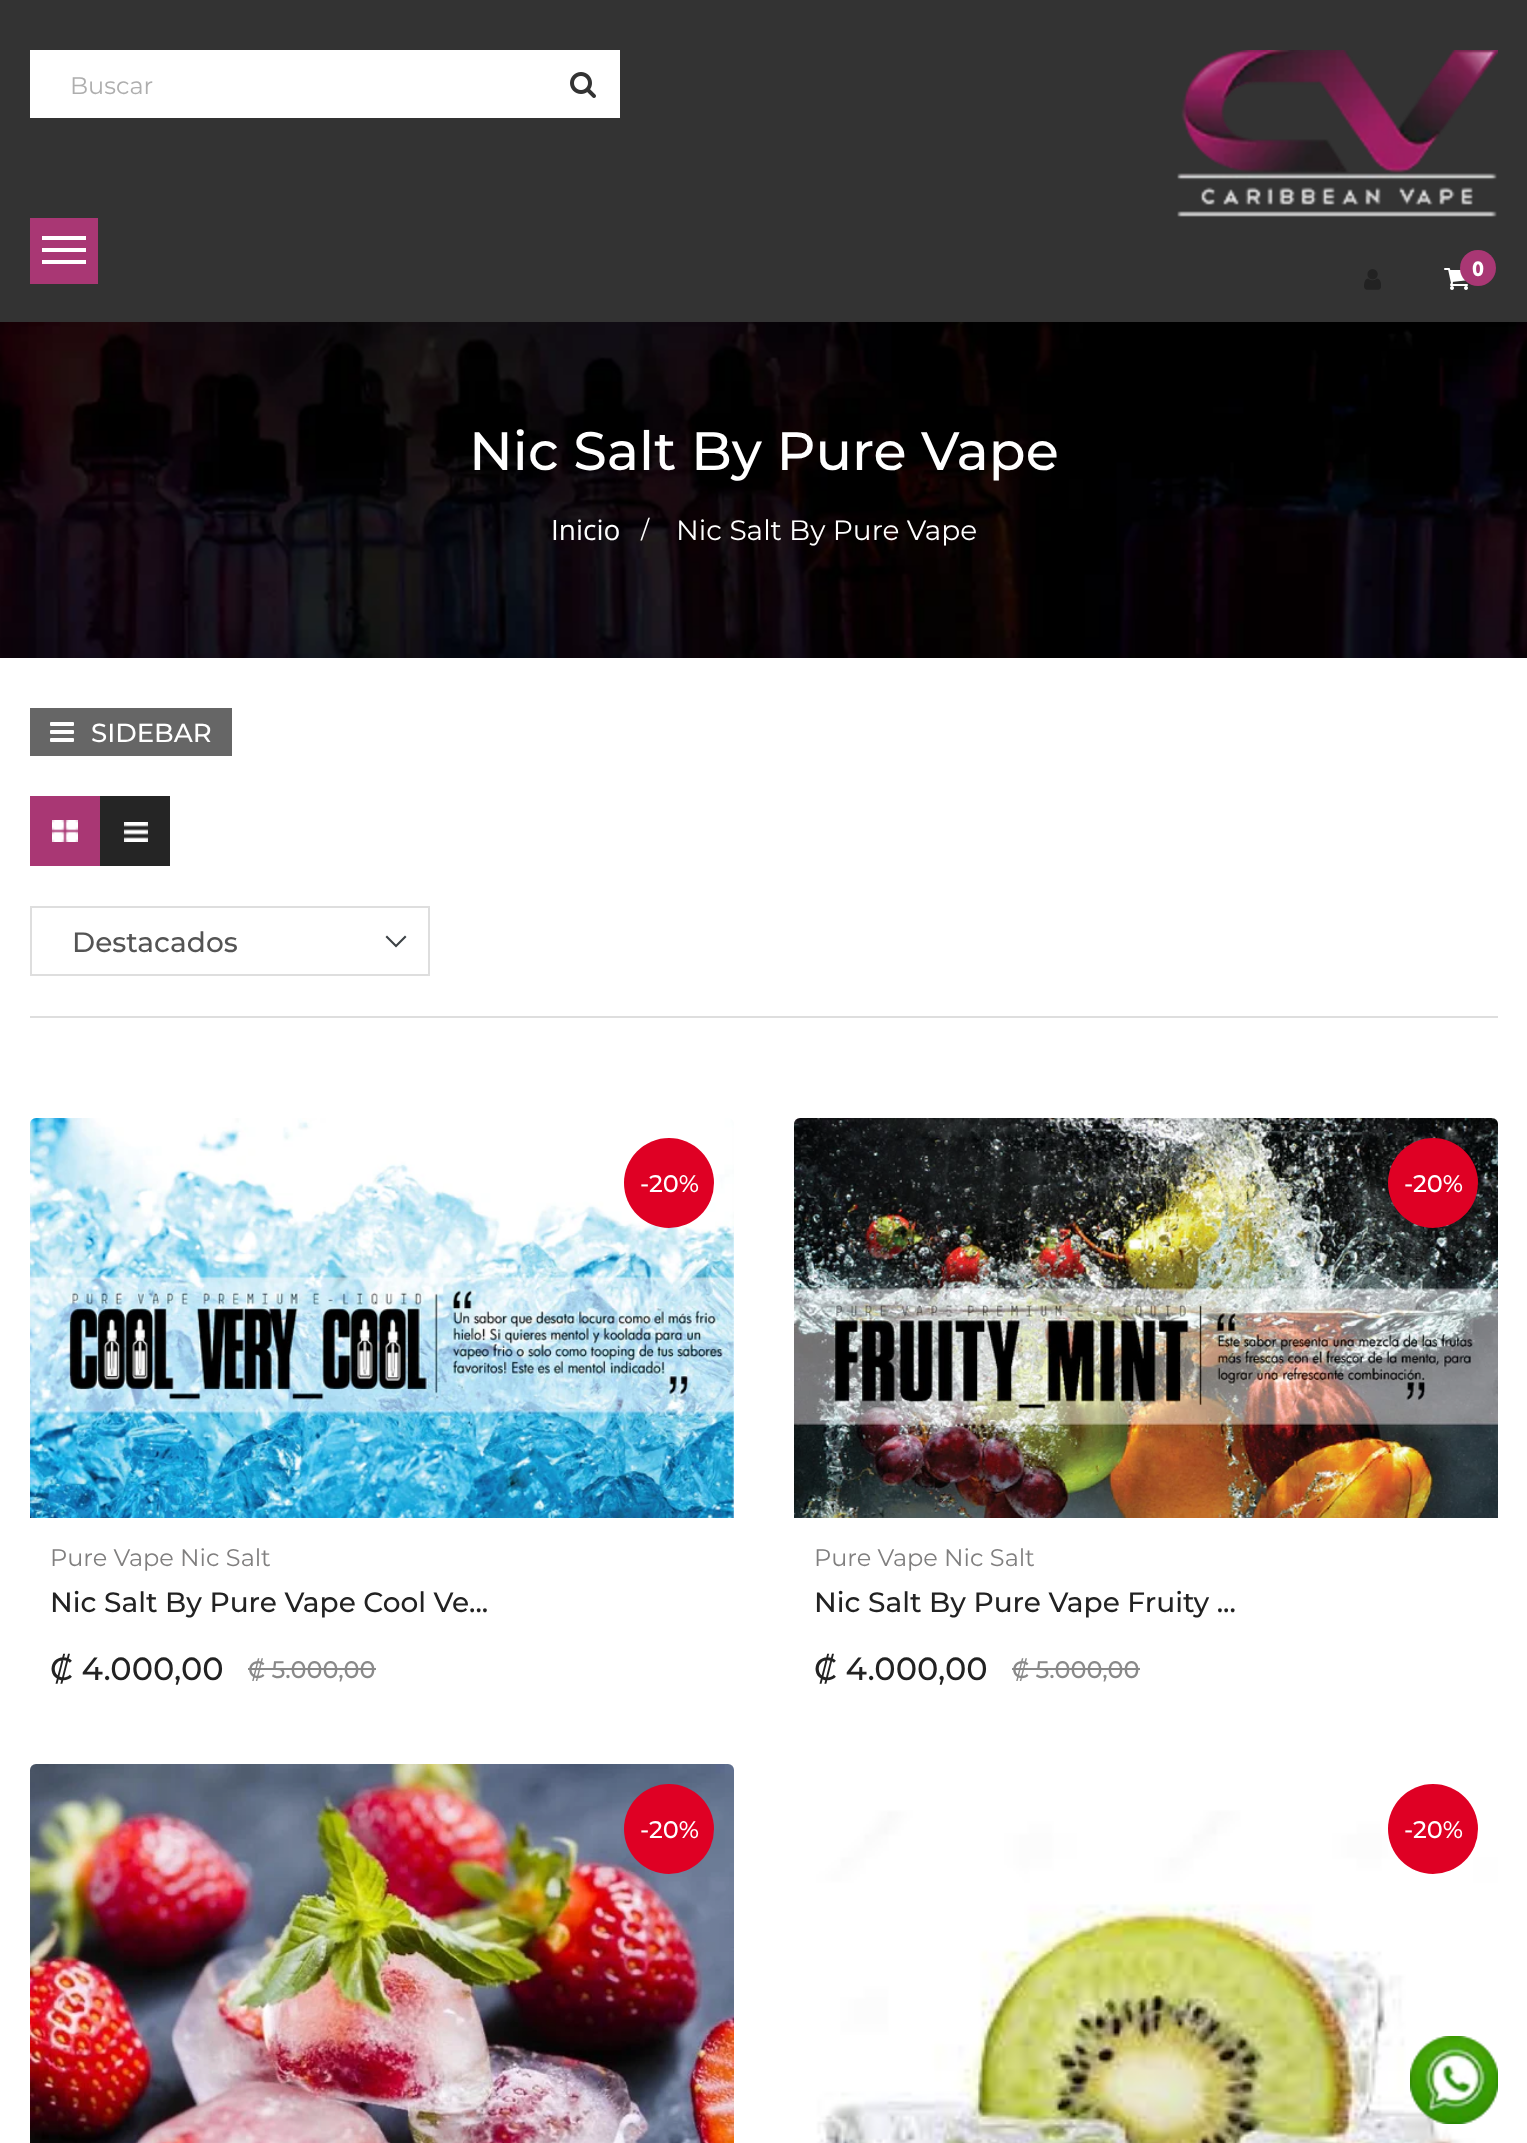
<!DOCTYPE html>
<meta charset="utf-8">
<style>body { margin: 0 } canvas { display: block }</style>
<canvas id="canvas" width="1527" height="2143"></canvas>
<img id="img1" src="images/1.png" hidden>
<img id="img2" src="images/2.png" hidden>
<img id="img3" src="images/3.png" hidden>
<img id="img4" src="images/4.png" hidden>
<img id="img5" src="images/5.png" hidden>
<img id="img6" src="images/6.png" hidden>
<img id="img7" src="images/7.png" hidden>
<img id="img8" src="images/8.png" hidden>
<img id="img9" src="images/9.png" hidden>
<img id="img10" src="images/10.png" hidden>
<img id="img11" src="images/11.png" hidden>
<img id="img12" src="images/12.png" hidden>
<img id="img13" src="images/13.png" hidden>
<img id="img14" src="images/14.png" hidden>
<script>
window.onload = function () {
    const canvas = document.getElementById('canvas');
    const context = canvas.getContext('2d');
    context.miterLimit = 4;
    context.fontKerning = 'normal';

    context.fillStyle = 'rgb(255, 255, 255)';
    context.fillRect(0, 0, 1527, 2143);
    context.fillStyle = 'rgb(51, 51, 51)';
    context.fillRect(0, 0, 1527, 322);
    context.fillStyle = 'rgb(169, 55, 116)';
    context.fillRect(30, 218, 68, 66);
    context.fillStyle = 'rgb(255, 255, 255)';
    context.fillRect(42, 236, 44, 4);
    context.fillRect(42, 248, 44, 4);
    context.fillRect(42, 260, 44, 4);
    context.fillRect(30, 50, 590, 68);
    context.drawImage(document.getElementById('img1'), 570, 72, 26, 26);
    context.drawImage(document.getElementById('img2'), 1177, 50, 321, 167);
    context.drawImage(document.getElementById('img3'), 1364, 269, 17, 21);
    context.drawImage(document.getElementById('img4'), 1444, 268, 24, 22);
    context.fillStyle = 'rgb(169, 55, 116)';
    context.beginPath();
    context.arc(1478, 268, 18, 0, 2 * Math.PI);
    context.fill();
    context.drawImage(document.getElementById('img5'), 0, 322, 1527, 336);
    context.fillStyle = 'rgb(102, 102, 102)';
    context.fillRect(30, 708, 202, 48);
    context.drawImage(document.getElementById('img6'), 50, 722, 24, 20);
    context.fillStyle = 'rgb(222, 222, 222)';
    context.fillRect(30, 1016, 1468, 2);
    context.fillStyle = 'rgb(169, 55, 116)';
    context.fillRect(30, 796, 70, 70);
    context.drawImage(document.getElementById('img7'), 52, 820, 26, 22);
    context.fillStyle = 'rgb(37, 37, 37)';
    context.fillRect(100, 796, 70, 70);
    context.drawImage(document.getElementById('img8'), 124, 822, 24, 20);
    context.fillStyle = 'rgb(61, 66, 70)';
    context.beginPath();
    context.moveTo(396, 947.5);
    context.lineTo(385.5, 937);
    context.lineTo(387, 935.5);
    context.lineTo(396, 944.5);
    context.lineTo(405, 935.5);
    context.lineTo(406.5, 937);
    context.closePath();
    context.fill();
    context.strokeStyle = 'rgb(222, 222, 222)';
    context.lineWidth = 2;
    context.strokeRect(31, 907, 398, 68);
    context.drawImage(document.getElementById('img9'), 30, 1118, 704, 400);
    context.fillStyle = 'rgb(223, 0, 36)';
    context.beginPath();
    context.arc(669, 1183, 45, 0, 2 * Math.PI);
    context.fill();
    context.fillStyle = 'rgb(137, 137, 137)';
    context.fillRect(248, 1668, 128, 2);
    context.drawImage(document.getElementById('img10'), 794, 1118, 704, 400);
    context.fillStyle = 'rgb(223, 0, 36)';
    context.beginPath();
    context.arc(1433, 1183, 45, 0, 2 * Math.PI);
    context.fill();
    context.fillStyle = 'rgb(137, 137, 137)';
    context.fillRect(1012, 1668, 128, 2);
    context.drawImage(document.getElementById('img11'), 30, 1764, 704, 379);
    context.fillStyle = 'rgb(223, 0, 36)';
    context.beginPath();
    context.arc(669, 1829, 45, 0, 2 * Math.PI);
    context.fill();
    context.drawImage(document.getElementById('img12'), 794, 1764, 704, 379);
    context.beginPath();
    context.arc(1433, 1829, 45, 0, 2 * Math.PI);
    context.fill();
    context.drawImage(document.getElementById('img13'), 1410, 2036, 88, 88);
    context.drawImage(document.getElementById('img14'), 1410, 2036, 88, 88);
    context.font = '24px Montserrat';
    context.fillStyle = 'rgb(174, 174, 174)';
    context.fillText('Buscar', 70, 94);
    context.font = 'bold 22px Hind';
    context.fillStyle = 'rgb(255, 255, 255)';
    context.fillText('0', 1472, 276);
    context.font = '500 54px Montserrat';
    context.fillText('Nic Salt By Pure Vape', 469, 470);
    context.font = '28px Open Sans';
    context.fillText('Inicio', 551, 540);
    context.font = '24px Montserrat';
    context.fillText('/', 641, 538);
    context.font = '28px Montserrat';
    context.fillText('Nic Salt By Pure Vape', 676, 540);
    context.font = '500 26px Montserrat';
    context.fillText('SIDEBAR', 91, 742);
    context.font = '500 28px Montserrat';
    context.fillStyle = 'rgb(84, 84, 84)';
    context.fillText('Destacados', 72, 952);
    context.font = '500 24px Montserrat';
    context.fillStyle = 'rgb(255, 255, 255)';
    context.fillText('-20%', 640, 1192);
    context.font = '24px Montserrat';
    context.fillStyle = 'rgb(128, 127, 127)';
    context.fillText('Pure Vape Nic Salt', 50, 1566);
    context.font = '500 28px Montserrat';
    context.fillStyle = 'rgb(34, 34, 34)';
    context.fillText('Nic Salt By Pure Vape Cool Ve...', 50, 1612);
    context.font = '500 32px Montserrat';
    context.fillText('₡ 4.000,00', 50, 1680);
    context.font = '500 24px Montserrat';
    context.fillStyle = 'rgb(137, 137, 137)';
    context.fillText('₡ 5.000,00', 248, 1678);
    context.fillStyle = 'rgb(255, 255, 255)';
    context.fillText('-20%', 1404, 1192);
    context.font = '24px Montserrat';
    context.fillStyle = 'rgb(128, 127, 127)';
    context.fillText('Pure Vape Nic Salt', 814, 1566);
    context.font = '500 28px Montserrat';
    context.fillStyle = 'rgb(34, 34, 34)';
    context.fillText('Nic Salt By Pure Vape Fruity ...', 814, 1612);
    context.font = '500 32px Montserrat';
    context.fillText('₡ 4.000,00', 814, 1680);
    context.font = '500 24px Montserrat';
    context.fillStyle = 'rgb(137, 137, 137)';
    context.fillText('₡ 5.000,00', 1012, 1678);
    context.fillStyle = 'rgb(255, 255, 255)';
    context.fillText('-20%', 640, 1838);
    context.fillText('-20%', 1404, 1838);
};
</script>
